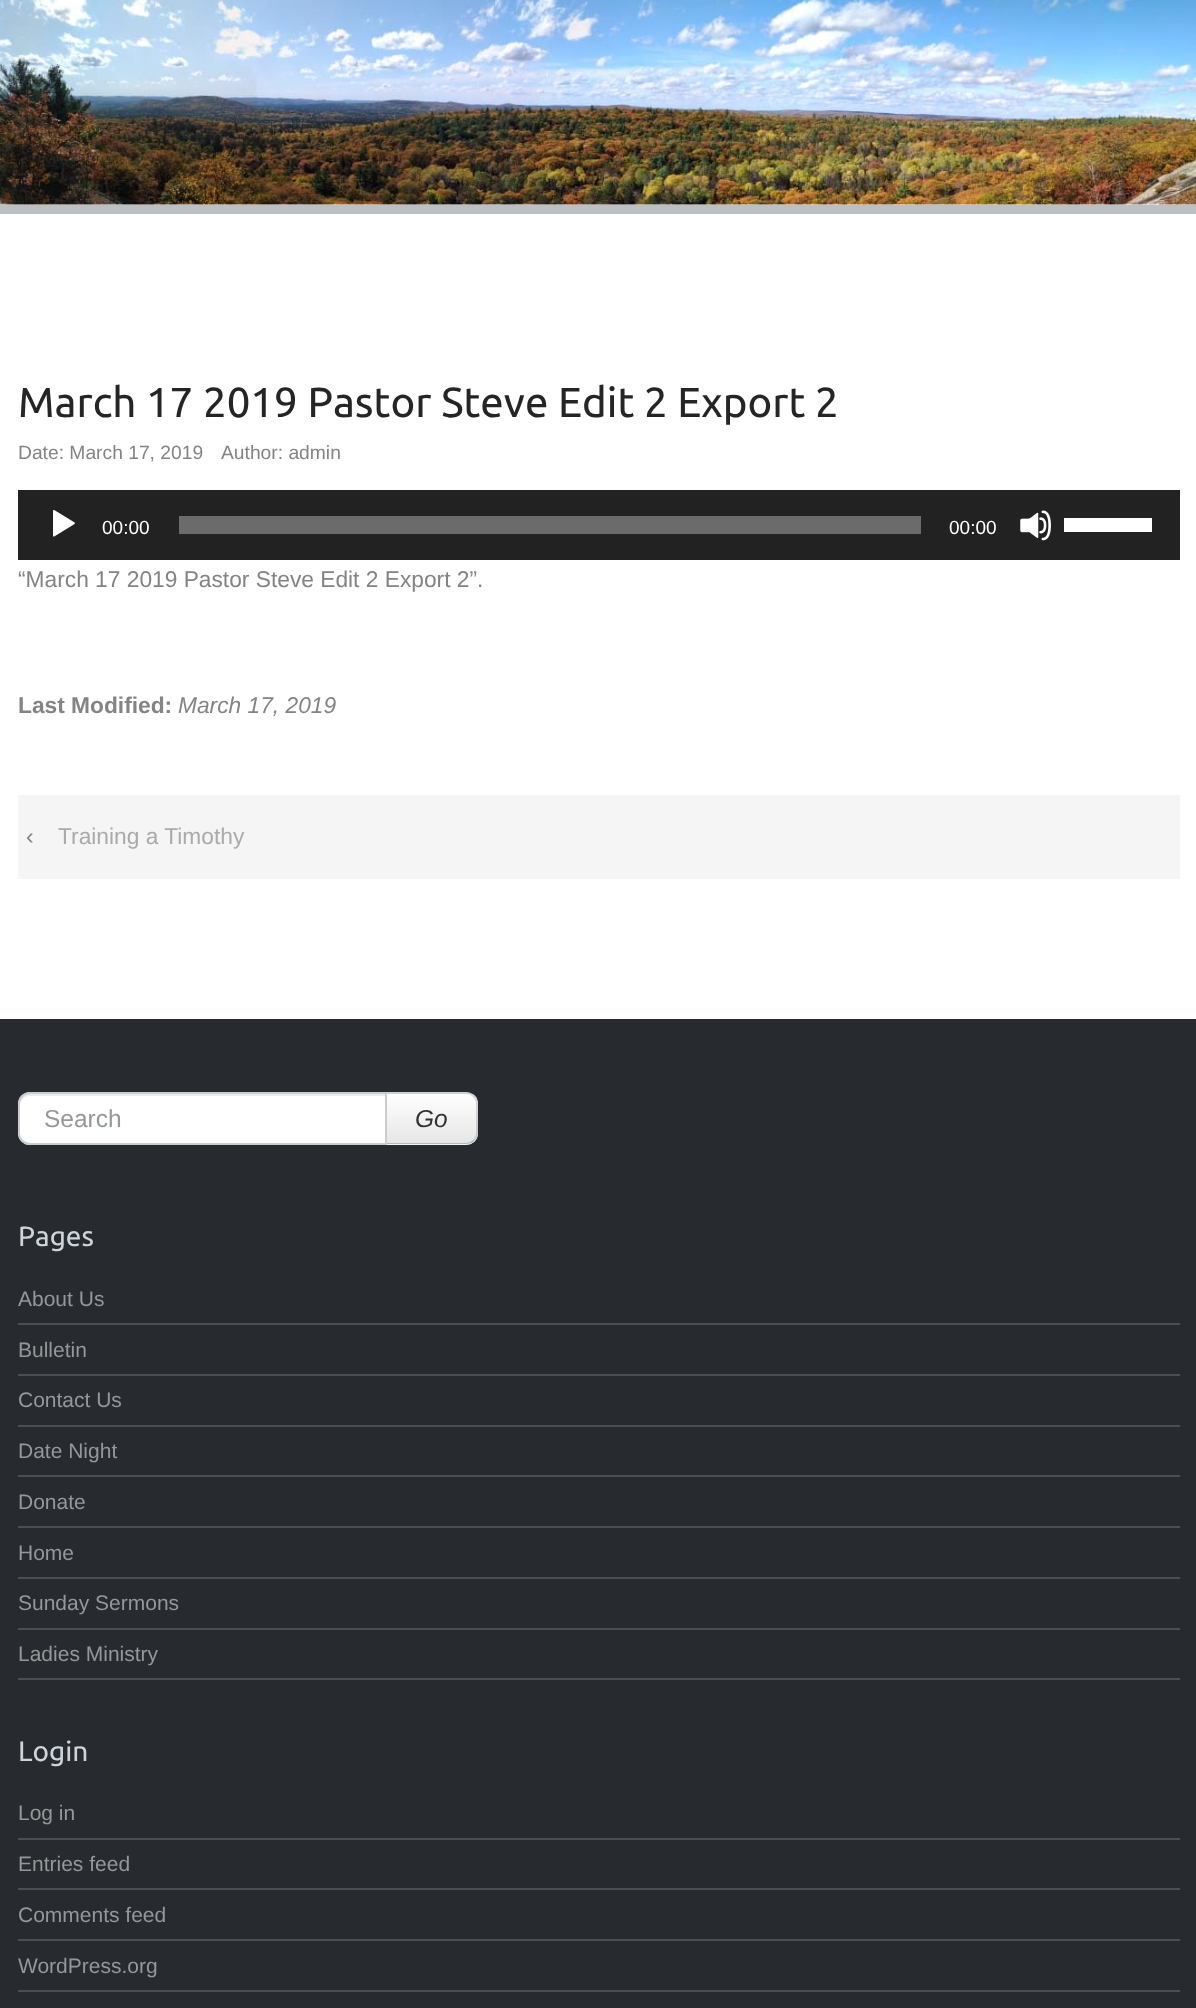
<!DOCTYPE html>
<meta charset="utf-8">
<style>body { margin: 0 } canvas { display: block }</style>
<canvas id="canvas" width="1196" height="2008"></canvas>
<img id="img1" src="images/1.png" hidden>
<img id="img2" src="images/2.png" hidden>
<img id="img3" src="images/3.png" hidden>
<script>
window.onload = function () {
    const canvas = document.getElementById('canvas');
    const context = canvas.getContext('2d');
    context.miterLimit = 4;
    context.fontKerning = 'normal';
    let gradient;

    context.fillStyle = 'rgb(255, 255, 255)';
    context.fillRect(0, 0, 1196, 2008);
    context.fillStyle = 'rgb(188, 192, 195)';
    context.fillRect(0, 205, 1196, 9);
    context.drawImage(document.getElementById('img1'), 0, 0, 1196, 205);
    context.fillStyle = 'rgb(34, 34, 34)';
    context.fillRect(18, 490, 1162, 70);
    context.drawImage(document.getElementById('img2'), 53, 510, 22, 27);
    context.fillStyle = 'rgb(107, 107, 107)';
    context.fillRect(179, 516, 742, 18);
    context.drawImage(document.getElementById('img3'), 1020, 510, 31, 31);
    context.fillStyle = 'rgb(255, 255, 255)';
    context.fillRect(1064, 518, 88, 14);
    context.fillStyle = 'rgb(245, 245, 245)';
    context.fillRect(18, 795, 1162, 84);
    context.fillStyle = 'rgb(39, 43, 48)';
    context.fillRect(0, 1019, 1196, 989);
    context.fillStyle = 'rgb(245, 245, 245)';
    context.beginPath();
    context.roundRect(385, 1092, 93, 53, [0, 12, 12, 0]);
    context.fill();
    context.save();
    context.beginPath();
    context.roundRect(385, 1092, 93, 53, [0, 12, 12, 0]);
    context.clip();
    gradient = context.createLinearGradient(431, 1094, 431, 1143);
    gradient.addColorStop(0, 'rgb(255, 255, 255)');
    gradient.addColorStop(1, 'rgb(230, 230, 230)');
    context.fillStyle = gradient;
    context.fillRect(387, 1094, 91, 49);
    context.restore();
    context.fillStyle = 'rgba(0, 0, 0, 0.15)';
    context.beginPath();
    context.moveTo(385, 1092);
    context.lineTo(387, 1094);
    context.lineTo(466, 1094);
    context.bezierCurveTo(469, 1094, 471, 1095, 473, 1097);
    context.lineTo(474, 1095);
    context.bezierCurveTo(472, 1093, 469, 1092, 466, 1092);
    context.closePath();
    context.fill();
    context.beginPath();
    context.moveTo(478, 1134);
    context.bezierCurveTo(477, 1137, 476, 1139, 474, 1141);
    context.lineTo(473, 1140);
    context.bezierCurveTo(475, 1138, 476, 1135, 476, 1132);
    context.lineTo(476, 1104);
    context.bezierCurveTo(476, 1101, 475, 1099, 473, 1097);
    context.lineTo(474, 1095);
    context.bezierCurveTo(476, 1097, 477, 1099, 478, 1102);
    context.closePath();
    context.fill();
    context.fillStyle = 'rgba(0, 0, 0, 0.25)';
    context.beginPath();
    context.moveTo(474, 1141);
    context.bezierCurveTo(472, 1143, 469, 1144, 466, 1144);
    context.lineTo(386, 1144);
    context.lineTo(387, 1142);
    context.lineTo(387, 1143);
    context.lineTo(466, 1143);
    context.bezierCurveTo(469, 1143, 471, 1142, 473, 1140);
    context.closePath();
    context.fill();
    context.fillStyle = 'rgb(255, 255, 255)';
    context.beginPath();
    context.roundRect(18, 1092, 369, 53, [12, 0, 0, 12]);
    context.fill();
    context.fillStyle = 'rgb(236, 236, 236)';
    context.beginPath();
    context.moveTo(30, 1096);
    context.lineTo(385, 1096);
    context.lineTo(385, 1094);
    context.lineTo(30, 1094);
    context.bezierCurveTo(24, 1094, 19, 1099, 19, 1105);
    context.lineTo(19, 1110);
    context.bezierCurveTo(19, 1103, 22, 1096, 30, 1096);
    context.closePath();
    context.moveTo(20, 1136);
    context.lineTo(19, 1131);
    context.closePath();
    context.fill('evenodd');
    context.beginPath();
    context.roundRect(19, 1093, 367, 51, [11, 0, 0, 11]);
    context.strokeStyle = 'rgb(204, 204, 204)';
    context.lineWidth = 2;
    context.stroke();
    context.fillStyle = 'rgb(76, 78, 82)';
    context.fillRect(18, 1323, 1162, 2);
    context.fillRect(18, 1374, 1162, 2);
    context.fillRect(18, 1425, 1162, 2);
    context.fillRect(18, 1475, 1162, 2);
    context.fillRect(18, 1526, 1162, 2);
    context.fillRect(18, 1577, 1162, 2);
    context.fillRect(18, 1628, 1162, 2);
    context.fillRect(18, 1678, 1162, 2);
    context.fillRect(18, 1838, 1162, 2);
    context.fillRect(18, 1888, 1162, 2);
    context.fillRect(18, 1939, 1162, 2);
    context.fillRect(18, 1990, 1162, 2);
    context.font = '42px Ubuntu';
    context.fillStyle = 'rgb(37, 37, 37)';
    context.fillText('March 17 2019 Pastor Steve Edit 2 Export 2', 18, 417);
    context.font = '19.25px Liberation Sans';
    context.fillStyle = 'rgb(132, 132, 132)';
    context.fillText('Date: March 17, 2019', 18, 459);
    context.fillText('Author: admin', 221, 459);
    context.font = '19px Liberation Sans';
    context.fillStyle = 'rgb(255, 255, 255)';
    context.fillText('00:00', 102, 534);
    context.fillText('00:00', 949, 534);
    context.font = '22.75px Liberation Sans';
    context.fillStyle = 'rgb(132, 132, 132)';
    context.fillText('“March 17 2019 Pastor Steve Edit 2 Export 2”.', 18, 587);
    context.font = 'bold 22.75px Liberation Sans';
    context.fillText('Last Modified:', 18, 713);
    context.font = 'italic 22.75px Liberation Sans';
    context.fillText('March 17, 2019', 178, 713);
    context.font = '22.75px Liberation Sans';
    context.fillText('‹', 26, 844);
    context.fillStyle = 'rgb(170, 170, 170)';
    context.fillText('Training a Timothy', 58, 844);
    context.font = '24.5px Liberation Sans';
    context.fillStyle = 'rgb(149, 151, 152)';
    context.fillText('Search', 44, 1127);
    context.font = 'italic 24.5px Liberation Sans';
    context.fillStyle = 'rgb(51, 51, 51)';
    context.fillText('Go', 415, 1127);
    context.font = '28px Ubuntu';
    context.fillStyle = 'rgb(206, 212, 218)';
    context.fillText('Pages', 18, 1246);
    context.font = '21px Liberation Sans';
    context.fillStyle = 'rgb(149, 151, 152)';
    context.fillText('About Us', 18, 1306);
    context.fillText('Bulletin', 18, 1357);
    context.fillText('Contact Us', 18, 1407);
    context.fillText('Date Night', 18, 1458);
    context.fillText('Donate', 18, 1509);
    context.fillText('Home', 18, 1560);
    context.fillText('Sunday Sermons', 18, 1610);
    context.fillText('Ladies Ministry', 18, 1661);
    context.font = '28px Ubuntu';
    context.fillStyle = 'rgb(206, 212, 218)';
    context.fillText('Login', 18, 1761);
    context.font = '21px Liberation Sans';
    context.fillStyle = 'rgb(149, 151, 152)';
    context.fillText('Log in', 18, 1820);
    context.fillText('Entries feed', 18, 1871);
    context.fillText('Comments feed', 18, 1922);
    context.fillText('WordPress.org', 18, 1973);
};
</script>
